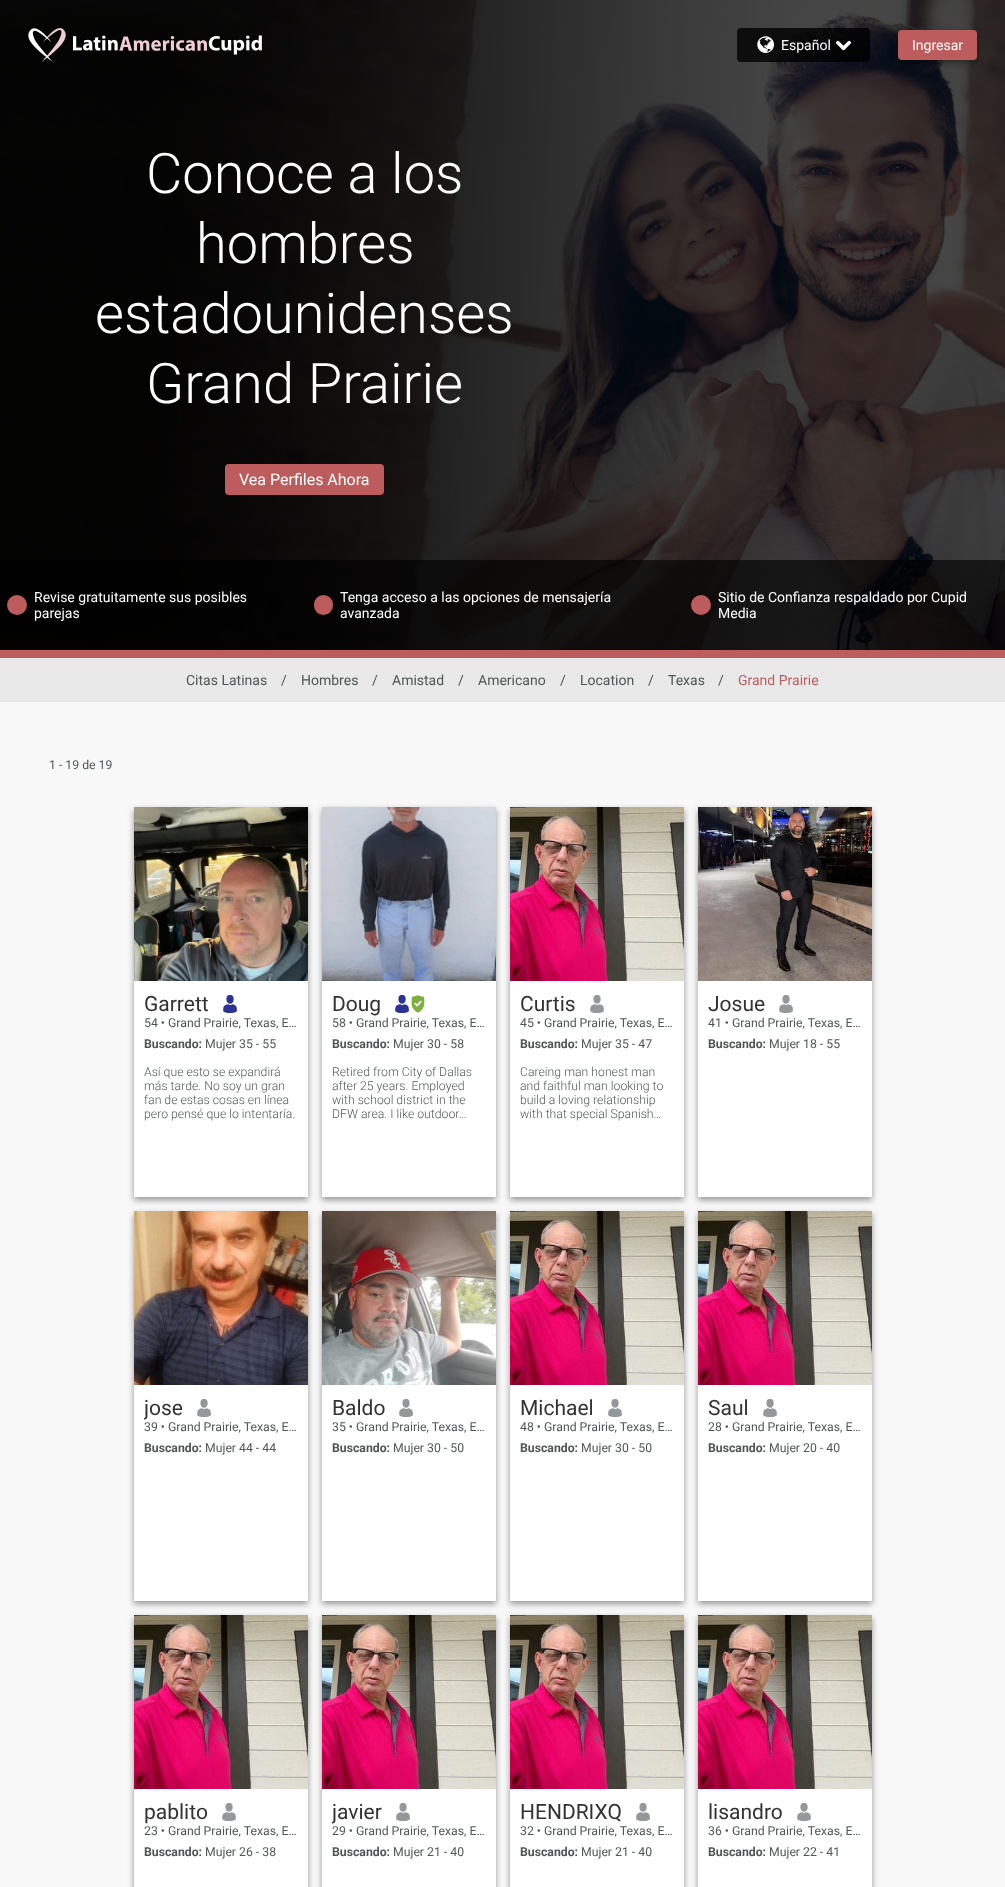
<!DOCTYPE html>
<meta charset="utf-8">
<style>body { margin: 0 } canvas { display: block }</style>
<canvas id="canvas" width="1005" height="1887"></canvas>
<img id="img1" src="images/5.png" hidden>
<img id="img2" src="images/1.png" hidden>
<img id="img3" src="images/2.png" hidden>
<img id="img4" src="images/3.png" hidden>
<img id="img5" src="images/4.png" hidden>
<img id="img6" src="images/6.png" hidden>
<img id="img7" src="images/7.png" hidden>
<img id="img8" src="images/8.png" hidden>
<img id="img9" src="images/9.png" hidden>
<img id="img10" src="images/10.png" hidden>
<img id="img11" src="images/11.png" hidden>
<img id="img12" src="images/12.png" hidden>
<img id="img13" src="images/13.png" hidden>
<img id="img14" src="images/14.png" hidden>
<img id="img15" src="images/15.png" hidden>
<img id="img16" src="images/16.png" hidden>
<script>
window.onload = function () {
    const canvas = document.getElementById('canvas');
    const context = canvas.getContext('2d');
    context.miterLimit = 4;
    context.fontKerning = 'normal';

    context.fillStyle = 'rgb(248, 248, 248)';
    context.fillRect(0, 0, 1005, 1887);
    context.drawImage(document.getElementById('img1'), 0, 0, 1005, 650);
    context.drawImage(document.getElementById('img2'), 28, 28, 38, 34);
    context.drawImage(document.getElementById('img3'), 73, 35, 189, 20);
    context.fillStyle = 'rgba(0, 0, 0, 0.8)';
    context.beginPath();
    context.roundRect(737, 28, 133, 34, 4);
    context.fill();
    context.drawImage(document.getElementById('img4'), 757, 36, 17, 17);
    context.drawImage(document.getElementById('img5'), 836, 40, 15, 11);
    context.fillStyle = 'rgba(0, 0, 0, 0.4)';
    context.filter = 'blur(3px)';
    context.beginPath();
    context.roundRect(898, 33, 79, 30, 4);
    context.fill();
    context.filter = 'none';
    context.fillStyle = 'rgb(189, 92, 92)';
    context.beginPath();
    context.roundRect(898, 30, 79, 30, 4);
    context.fill();
    context.beginPath();
    context.roundRect(225, 464, 159, 31, 4);
    context.fill();
    context.fillStyle = 'rgba(0, 0, 0, 0.6)';
    context.fillRect(0, 560, 1005, 90);
    context.fillStyle = 'rgb(189, 92, 92)';
    context.beginPath();
    context.arc(17, 605, 10, 0, 2 * Math.PI);
    context.fill();
    context.beginPath();
    context.roundRect(314, 595, 19, 20, 9.5);
    context.fill();
    context.beginPath();
    context.arc(701, 605, 10, 0, 2 * Math.PI);
    context.fill();
    context.fillRect(0, 650, 1005, 8);
    context.fillStyle = 'rgb(233, 233, 233)';
    context.fillRect(0, 658, 1005, 44);
    context.fillStyle = 'rgba(0, 0, 0, 0.4)';
    context.filter = 'blur(3px)';
    context.beginPath();
    context.rect(134, 810, 174, 390);
    context.fill();
    context.filter = 'none';
    context.fillStyle = 'rgb(255, 255, 255)';
    context.fillRect(134, 981, 174, 216);
    context.drawImage(document.getElementById('img6'), 134, 807, 174, 174);
    context.drawImage(document.getElementById('img7'), 223, 995, 14, 18);
    context.fillStyle = 'rgba(0, 0, 0, 0.4)';
    context.filter = 'blur(3px)';
    context.beginPath();
    context.rect(322, 810, 174, 390);
    context.fill();
    context.filter = 'none';
    context.fillStyle = 'rgb(255, 255, 255)';
    context.fillRect(322, 981, 174, 216);
    context.drawImage(document.getElementById('img8'), 322, 807, 174, 174);
    context.drawImage(document.getElementById('img7'), 395, 995, 14, 18);
    context.drawImage(document.getElementById('img9'), 411, 995, 14, 18);
    context.fillStyle = 'rgba(0, 0, 0, 0.4)';
    context.filter = 'blur(3px)';
    context.beginPath();
    context.rect(510, 810, 174, 390);
    context.fill();
    context.filter = 'none';
    context.fillStyle = 'rgb(255, 255, 255)';
    context.fillRect(510, 981, 174, 216);
    context.drawImage(document.getElementById('img10'), 510, 807, 174, 174);
    context.drawImage(document.getElementById('img11'), 590, 995, 14, 18);
    context.fillStyle = 'rgba(0, 0, 0, 0.4)';
    context.filter = 'blur(3px)';
    context.beginPath();
    context.rect(698, 810, 174, 390);
    context.fill();
    context.filter = 'none';
    context.fillStyle = 'rgb(255, 255, 255)';
    context.fillRect(698, 981, 174, 216);
    context.drawImage(document.getElementById('img12'), 698, 807, 174, 174);
    context.drawImage(document.getElementById('img11'), 779, 995, 14, 18);
    context.fillStyle = 'rgba(0, 0, 0, 0.4)';
    context.filter = 'blur(3px)';
    context.beginPath();
    context.rect(134, 1214, 174, 390);
    context.fill();
    context.filter = 'none';
    context.fillStyle = 'rgb(255, 255, 255)';
    context.fillRect(134, 1385, 174, 216);
    context.drawImage(document.getElementById('img13'), 134, 1211, 174, 174);
    context.drawImage(document.getElementById('img11'), 197, 1399, 14, 18);
    context.fillStyle = 'rgba(0, 0, 0, 0.4)';
    context.filter = 'blur(3px)';
    context.beginPath();
    context.rect(322, 1214, 174, 390);
    context.fill();
    context.filter = 'none';
    context.fillStyle = 'rgb(255, 255, 255)';
    context.fillRect(322, 1385, 174, 216);
    context.drawImage(document.getElementById('img14'), 322, 1211, 174, 174);
    context.drawImage(document.getElementById('img11'), 399, 1399, 14, 18);
    context.fillStyle = 'rgba(0, 0, 0, 0.4)';
    context.filter = 'blur(3px)';
    context.beginPath();
    context.rect(510, 1214, 174, 390);
    context.fill();
    context.filter = 'none';
    context.fillStyle = 'rgb(255, 255, 255)';
    context.fillRect(510, 1385, 174, 216);
    context.drawImage(document.getElementById('img10'), 510, 1211, 174, 174);
    context.drawImage(document.getElementById('img11'), 608, 1399, 14, 18);
    context.fillStyle = 'rgba(0, 0, 0, 0.4)';
    context.filter = 'blur(3px)';
    context.beginPath();
    context.rect(698, 1214, 174, 390);
    context.fill();
    context.filter = 'none';
    context.fillStyle = 'rgb(255, 255, 255)';
    context.fillRect(698, 1385, 174, 216);
    context.drawImage(document.getElementById('img15'), 698, 1211, 174, 174);
    context.drawImage(document.getElementById('img11'), 763, 1399, 14, 18);
    context.fillStyle = 'rgba(0, 0, 0, 0.4)';
    context.filter = 'blur(3px)';
    context.beginPath();
    context.rect(134, 1618, 174, 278);
    context.fill();
    context.filter = 'none';
    context.fillStyle = 'rgb(255, 255, 255)';
    context.fillRect(134, 1789, 174, 98);
    context.drawImage(document.getElementById('img15'), 134, 1615, 174, 174);
    context.drawImage(document.getElementById('img11'), 222, 1803, 14, 18);
    context.fillStyle = 'rgba(0, 0, 0, 0.4)';
    context.filter = 'blur(3px)';
    context.beginPath();
    context.rect(322, 1618, 174, 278);
    context.fill();
    context.filter = 'none';
    context.fillStyle = 'rgb(255, 255, 255)';
    context.fillRect(322, 1789, 174, 98);
    context.drawImage(document.getElementById('img16'), 322, 1615, 174, 174);
    context.drawImage(document.getElementById('img11'), 396, 1803, 14, 18);
    context.fillStyle = 'rgba(0, 0, 0, 0.4)';
    context.filter = 'blur(3px)';
    context.beginPath();
    context.rect(510, 1618, 174, 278);
    context.fill();
    context.filter = 'none';
    context.fillStyle = 'rgb(255, 255, 255)';
    context.fillRect(510, 1789, 174, 98);
    context.drawImage(document.getElementById('img10'), 510, 1615, 174, 174);
    context.drawImage(document.getElementById('img11'), 636, 1803, 14, 18);
    context.fillStyle = 'rgba(0, 0, 0, 0.4)';
    context.filter = 'blur(3px)';
    context.beginPath();
    context.rect(698, 1618, 174, 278);
    context.fill();
    context.filter = 'none';
    context.fillStyle = 'rgb(255, 255, 255)';
    context.fillRect(698, 1789, 174, 98);
    context.drawImage(document.getElementById('img15'), 698, 1615, 174, 174);
    context.drawImage(document.getElementById('img11'), 797, 1803, 14, 18);
    context.font = '14px Roboto';
    context.fillText('Español', 781, 50);
    context.fillText('Ingresar', 912, 50);
    context.font = '300 56px Roboto';
    context.fillText('Conoce a los', 146, 193);
    context.fillText('hombres', 196, 263);
    context.fillText('estadounidenses', 95, 333);
    context.fillText('Grand Prairie', 146, 403);
    context.font = '16px Roboto';
    context.fillText('Vea Perfiles Ahora', 239, 485);
    context.font = '14px Roboto';
    context.fillText('Revise gratuitamente sus posibles', 34, 602);
    context.fillText('parejas', 34, 618);
    context.fillText('Tenga acceso a las opciones de mensajería', 340, 602);
    context.fillText('avanzada', 340, 618);
    context.fillText('Sitio de Confianza respaldado por Cupid', 718, 602);
    context.fillText('Media', 718, 618);
    context.fillStyle = 'rgb(80, 86, 86)';
    context.fillText('Citas Latinas', 186, 685);
    context.fillText('/', 281, 685);
    context.fillText('Hombres', 301, 685);
    context.fillText('/', 372, 685);
    context.fillText('Amistad', 392, 685);
    context.fillText('/', 458, 685);
    context.fillText('Americano', 478, 685);
    context.fillText('/', 560, 685);
    context.fillText('Location', 580, 685);
    context.fillText('/', 648, 685);
    context.fillText('Texas', 668, 685);
    context.fillText('/', 718, 685);
    context.fillStyle = 'rgb(189, 92, 92)';
    context.fillText('Grand Prairie', 738, 685);
    context.font = '12.25px Roboto';
    context.fillStyle = 'rgb(80, 86, 86)';
    context.fillText('1 - 19 de 19', 49, 769);
    context.font = '21px Roboto';
    context.fillStyle = 'rgb(50, 50, 50)';
    context.fillText('Garrett', 144, 1011);
    context.font = '12.25px Roboto';
    context.fillStyle = 'rgb(80, 86, 86)';
    context.fillText('54 • Grand Prairie, Texas, E…', 144, 1027);
    context.font = 'bold 12.25px Roboto';
    context.fillText('Buscando:', 144, 1048);
    context.font = '12.25px Roboto';
    context.fillText('Mujer 35 - 55', 205, 1048);
    context.font = '300 12.25px Roboto';
    context.fillText('Así que esto se expandirá', 144, 1076);
    context.fillText('más tarde. No soy un gran', 144, 1090);
    context.fillText('fan de estas cosas en línea', 144, 1104);
    context.fillText('pero pensé que lo intentaría.', 144, 1118);
    context.font = '21px Roboto';
    context.fillStyle = 'rgb(50, 50, 50)';
    context.fillText('Doug', 332, 1011);
    context.font = '12.25px Roboto';
    context.fillStyle = 'rgb(80, 86, 86)';
    context.fillText('58 • Grand Prairie, Texas, E…', 332, 1027);
    context.font = 'bold 12.25px Roboto';
    context.fillText('Buscando:', 332, 1048);
    context.font = '12.25px Roboto';
    context.fillText('Mujer 30 - 58', 393, 1048);
    context.font = '300 12.25px Roboto';
    context.fillText('Retired from City of Dallas', 332, 1076);
    context.fillText('after 25 years. Employed', 332, 1090);
    context.fillText('with school district in the', 332, 1104);
    context.fillText('DFW area. I like outdoor…', 332, 1118);
    context.font = '21px Roboto';
    context.fillStyle = 'rgb(50, 50, 50)';
    context.fillText('Curtis', 520, 1011);
    context.font = '12.25px Roboto';
    context.fillStyle = 'rgb(80, 86, 86)';
    context.fillText('45 • Grand Prairie, Texas, E…', 520, 1027);
    context.font = 'bold 12.25px Roboto';
    context.fillText('Buscando:', 520, 1048);
    context.font = '12.25px Roboto';
    context.fillText('Mujer 35 - 47', 581, 1048);
    context.font = '300 12.25px Roboto';
    context.fillText('Careing man honest man', 520, 1076);
    context.fillText('and faithful man looking to', 520, 1090);
    context.fillText('build a loving relationship', 520, 1104);
    context.fillText('with that special Spanish…', 520, 1118);
    context.font = '21px Roboto';
    context.fillStyle = 'rgb(50, 50, 50)';
    context.fillText('Josue', 708, 1011);
    context.font = '12.25px Roboto';
    context.fillStyle = 'rgb(80, 86, 86)';
    context.fillText('41 • Grand Prairie, Texas, E…', 708, 1027);
    context.font = 'bold 12.25px Roboto';
    context.fillText('Buscando:', 708, 1048);
    context.font = '12.25px Roboto';
    context.fillText('Mujer 18 - 55', 769, 1048);
    context.save();
    context.beginPath();
    context.rect(144, 1396, 39, 24);
    context.clip();
    context.font = '21px Roboto';
    context.fillStyle = 'rgb(50, 50, 50)';
    context.fillText('jose', 144, 1415);
    context.restore();
    context.fillText('39 • Grand Prairie, Texas, E…', 144, 1431);
    context.font = 'bold 12.25px Roboto';
    context.fillText('Buscando:', 144, 1452);
    context.font = '12.25px Roboto';
    context.fillText('Mujer 44 - 44', 205, 1452);
    context.font = '21px Roboto';
    context.fillStyle = 'rgb(50, 50, 50)';
    context.fillText('Baldo', 332, 1415);
    context.font = '12.25px Roboto';
    context.fillStyle = 'rgb(80, 86, 86)';
    context.fillText('35 • Grand Prairie, Texas, E…', 332, 1431);
    context.font = 'bold 12.25px Roboto';
    context.fillText('Buscando:', 332, 1452);
    context.font = '12.25px Roboto';
    context.fillText('Mujer 30 - 50', 393, 1452);
    context.font = '21px Roboto';
    context.fillStyle = 'rgb(50, 50, 50)';
    context.fillText('Michael', 520, 1415);
    context.font = '12.25px Roboto';
    context.fillStyle = 'rgb(80, 86, 86)';
    context.fillText('48 • Grand Prairie, Texas, E…', 520, 1431);
    context.font = 'bold 12.25px Roboto';
    context.fillText('Buscando:', 520, 1452);
    context.font = '12.25px Roboto';
    context.fillText('Mujer 30 - 50', 581, 1452);
    context.font = '21px Roboto';
    context.fillStyle = 'rgb(50, 50, 50)';
    context.fillText('Saul', 708, 1415);
    context.font = '12.25px Roboto';
    context.fillStyle = 'rgb(80, 86, 86)';
    context.fillText('28 • Grand Prairie, Texas, E…', 708, 1431);
    context.font = 'bold 12.25px Roboto';
    context.fillText('Buscando:', 708, 1452);
    context.font = '12.25px Roboto';
    context.fillText('Mujer 20 - 40', 769, 1452);
    context.font = '21px Roboto';
    context.fillStyle = 'rgb(50, 50, 50)';
    context.fillText('pablito', 144, 1819);
    context.font = '12.25px Roboto';
    context.fillStyle = 'rgb(80, 86, 86)';
    context.fillText('23 • Grand Prairie, Texas, E…', 144, 1835);
    context.font = 'bold 12.25px Roboto';
    context.fillText('Buscando:', 144, 1856);
    context.font = '12.25px Roboto';
    context.fillText('Mujer 26 - 38', 205, 1856);
    context.save();
    context.beginPath();
    context.rect(332, 1800, 50, 24);
    context.clip();
    context.font = '21px Roboto';
    context.fillStyle = 'rgb(50, 50, 50)';
    context.fillText('javier', 332, 1819);
    context.restore();
    context.fillText('29 • Grand Prairie, Texas, E…', 332, 1835);
    context.font = 'bold 12.25px Roboto';
    context.fillText('Buscando:', 332, 1856);
    context.font = '12.25px Roboto';
    context.fillText('Mujer 21 - 40', 393, 1856);
    context.font = '21px Roboto';
    context.fillStyle = 'rgb(50, 50, 50)';
    context.fillText('HENDRIXQ', 520, 1819);
    context.font = '12.25px Roboto';
    context.fillStyle = 'rgb(80, 86, 86)';
    context.fillText('32 • Grand Prairie, Texas, E…', 520, 1835);
    context.font = 'bold 12.25px Roboto';
    context.fillText('Buscando:', 520, 1856);
    context.font = '12.25px Roboto';
    context.fillText('Mujer 21 - 40', 581, 1856);
    context.font = '21px Roboto';
    context.fillStyle = 'rgb(50, 50, 50)';
    context.fillText('lisandro', 708, 1819);
    context.font = '12.25px Roboto';
    context.fillStyle = 'rgb(80, 86, 86)';
    context.fillText('36 • Grand Prairie, Texas, E…', 708, 1835);
    context.font = 'bold 12.25px Roboto';
    context.fillText('Buscando:', 708, 1856);
    context.font = '12.25px Roboto';
    context.fillText('Mujer 22 - 41', 769, 1856);
};
</script>
